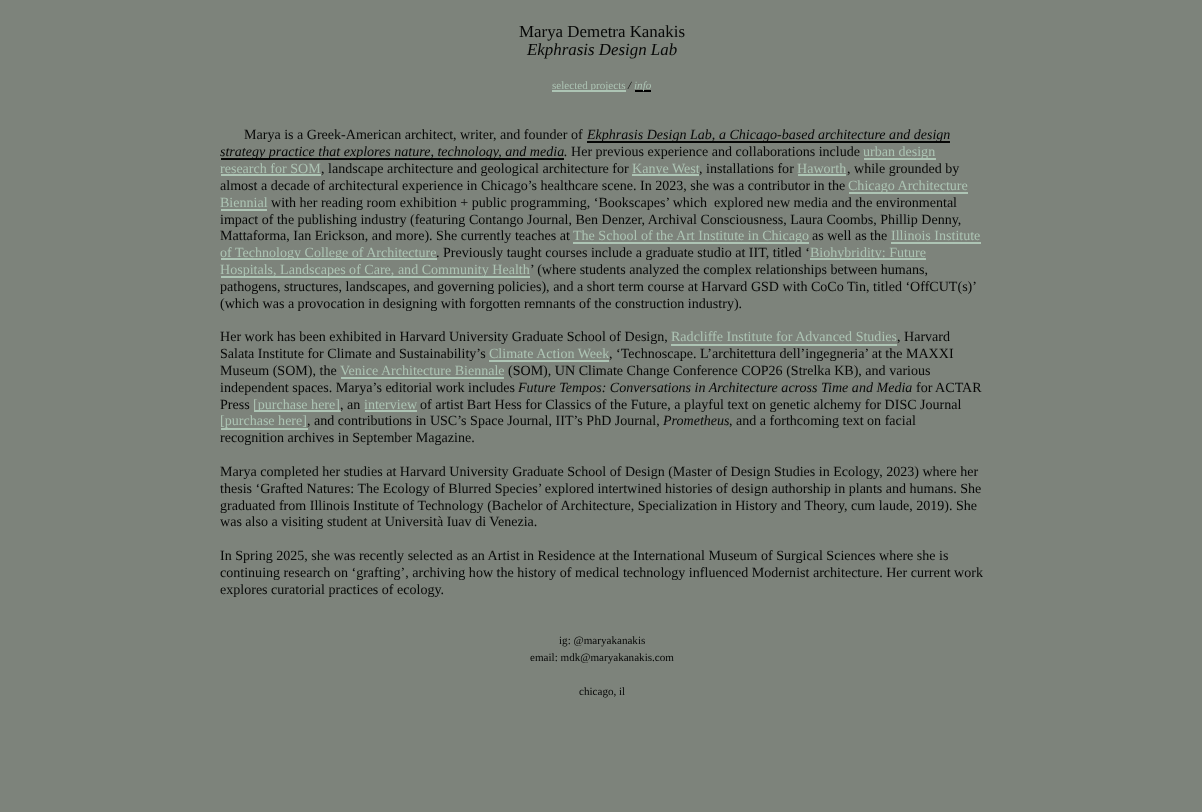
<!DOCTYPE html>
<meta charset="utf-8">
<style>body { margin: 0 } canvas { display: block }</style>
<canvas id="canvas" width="1202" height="812"></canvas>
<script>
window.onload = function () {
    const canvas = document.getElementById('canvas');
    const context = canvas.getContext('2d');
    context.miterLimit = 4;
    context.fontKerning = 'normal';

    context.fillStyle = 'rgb(125, 131, 123)';
    context.fillRect(0, 0, 1202, 812);
    context.fillStyle = 'rgb(173, 196, 180)';
    context.fillRect(552, 90, 74, 2);
    context.fillStyle = 'rgb(0, 0, 0)';
    context.fillRect(635, 90, 16, 2);
    context.fillStyle = 'rgb(6, 7, 6)';
    context.fillRect(587, 141, 363, 2);
    context.fillRect(221, 158, 343, 2);
    context.fillStyle = 'rgb(173, 196, 180)';
    context.fillRect(864, 158, 72, 2);
    context.fillRect(221, 174, 100, 2);
    context.fillRect(632, 174, 67, 2);
    context.fillRect(798, 174, 48, 2);
    context.fillRect(849, 192, 119, 2);
    context.fillRect(221, 209, 46, 2);
    context.fillRect(573, 242, 236, 2);
    context.fillRect(891, 242, 90, 2);
    context.fillRect(221, 258, 216, 2);
    context.fillRect(810, 258, 116, 2);
    context.fillRect(221, 276, 309, 2);
    context.fillRect(671, 344, 226, 2);
    context.fillRect(489, 360, 120, 2);
    context.fillRect(341, 377, 163, 2);
    context.fillRect(254, 410, 87, 2);
    context.fillRect(365, 410, 52, 2);
    context.fillRect(221, 428, 87, 2);
    context.font = '16.9px Liberation Serif';
    context.fillStyle = 'rgb(6, 7, 6)';
    context.fillText('Marya Demetra Kanakis', 519, 37);
    context.font = 'italic 16.9px Liberation Serif';
    context.fillText('Ekphrasis Design Lab', 527, 55);
    context.font = '11.1px Liberation Serif';
    context.fillStyle = 'rgb(173, 196, 180)';
    context.fillText('selected projects', 552, 89);
    context.font = 'italic 11.1px Liberation Serif';
    context.fillStyle = 'rgb(0, 0, 0)';
    context.fillText('/', 628, 89);
    context.fillStyle = 'rgb(173, 196, 180)';
    context.fillText('info', 634, 89);
    context.font = '14.05px Liberation Serif';
    context.fillStyle = 'rgb(6, 7, 6)';
    context.fillText('Marya is a Greek-American architect, writer, and founder of', 244, 139);
    context.font = 'italic 14.05px Liberation Serif';
    context.fillText('Ekphrasis Design Lab, a Chicago-based architecture and design', 587, 139);
    context.fillText('strategy practice that explores nature, technology, and media', 220, 156);
    context.fillText('.', 564, 156);
    context.font = '14.05px Liberation Serif';
    context.fillText('Her previous experience and collaborations include', 571, 156);
    context.fillStyle = 'rgb(173, 196, 180)';
    context.fillText('urban design', 863, 156);
    context.fillText('research for SOM', 220, 173);
    context.fillStyle = 'rgb(6, 7, 6)';
    context.fillText(', landscape architecture and geological architecture for', 321, 173);
    context.fillStyle = 'rgb(173, 196, 180)';
    context.fillText('Kanye West', 632, 173);
    context.fillStyle = 'rgb(6, 7, 6)';
    context.fillText(', installations for', 699, 173);
    context.fillStyle = 'rgb(173, 196, 180)';
    context.fillText('Haworth', 797, 173);
    context.fillStyle = 'rgb(6, 7, 6)';
    context.fillText(', while grounded by', 847, 173);
    context.fillText('almost a decade of architectural experience in Chicago’s healthcare scene. In 2023, she was a contributor in the', 220, 190);
    context.fillStyle = 'rgb(173, 196, 180)';
    context.fillText('Chicago Architecture', 848, 190);
    context.fillText('Biennial', 220, 207);
    context.fillStyle = 'rgb(6, 7, 6)';
    context.fillText('with her reading room exhibition + public programming, ‘Bookscapes’ which  explored new media and the environmental', 271, 207);
    context.fillText('impact of the publishing industry (featuring Contango Journal, Ben Denzer, Archival Consciousness, Laura Coombs, Phillip Denny,', 220, 224);
    context.fillText('Mattaforma, Ian Erickson, and more). She currently teaches at', 220, 240);
    context.fillStyle = 'rgb(173, 196, 180)';
    context.fillText('The School of the Art Institute in Chicago', 573, 240);
    context.fillStyle = 'rgb(6, 7, 6)';
    context.fillText('as well as the', 812, 240);
    context.fillStyle = 'rgb(173, 196, 180)';
    context.fillText('Illinois Institute', 891, 240);
    context.fillText('of Technology College of Architecture', 220, 257);
    context.fillStyle = 'rgb(6, 7, 6)';
    context.fillText('. Previously taught courses include a graduate studio at IIT, titled ‘', 436, 257);
    context.fillStyle = 'rgb(173, 196, 180)';
    context.fillText('Biohybridity: Future', 810, 257);
    context.fillText('Hospitals, Landscapes of Care, and Community Health', 220, 274);
    context.fillStyle = 'rgb(6, 7, 6)';
    context.fillText('’ (where students analyzed the complex relationships between humans,', 530, 274);
    context.fillText('pathogens, structures, landscapes, and governing policies), and a short term course at Harvard GSD with CoCo Tin, titled ‘OffCUT(s)’', 220, 291);
    context.fillText('(which was a provocation in designing with forgotten remnants of the construction industry).', 220, 308);
    context.fillText('Her work has been exhibited in Harvard University Graduate School of Design,', 220, 341);
    context.fillStyle = 'rgb(173, 196, 180)';
    context.fillText('Radcliffe Institute for Advanced Studies', 671, 341);
    context.fillStyle = 'rgb(6, 7, 6)';
    context.fillText(', Harvard', 897, 341);
    context.fillText('Salata Institute for Climate and Sustainability’s', 220, 358);
    context.fillStyle = 'rgb(173, 196, 180)';
    context.fillText('Climate Action Week', 489, 358);
    context.fillStyle = 'rgb(6, 7, 6)';
    context.fillText(', ‘Technoscape. L’architettura dell’ingegneria’ at the MAXXI', 609, 358);
    context.fillText('Museum (SOM), the', 220, 375);
    context.fillStyle = 'rgb(173, 196, 180)';
    context.fillText('Venice Architecture Biennale', 340, 375);
    context.fillStyle = 'rgb(6, 7, 6)';
    context.fillText('(SOM), UN Climate Change Conference COP26 (Strelka KB), and various', 508, 375);
    context.fillText('independent spaces. Marya’s editorial work includes', 220, 392);
    context.font = 'italic 14.05px Liberation Serif';
    context.fillText('Future Tempos: Conversations in Architecture across Time and Media', 518, 392);
    context.font = '14.05px Liberation Serif';
    context.fillText('for ACTAR', 916, 392);
    context.fillText('Press', 220, 409);
    context.fillStyle = 'rgb(173, 196, 180)';
    context.fillText('[purchase here]', 253, 409);
    context.fillStyle = 'rgb(6, 7, 6)';
    context.fillText(', an', 340, 409);
    context.fillStyle = 'rgb(173, 196, 180)';
    context.fillText('interview', 364, 409);
    context.fillStyle = 'rgb(6, 7, 6)';
    context.fillText('of artist Bart Hess for Classics of the Future, a playful text on genetic alchemy for DISC Journal', 420, 409);
    context.fillStyle = 'rgb(173, 196, 180)';
    context.fillText('[purchase here]', 220, 425);
    context.fillStyle = 'rgb(6, 7, 6)';
    context.fillText(', and contributions in USC’s Space Journal, IIT’s PhD Journal,', 307, 425);
    context.font = 'italic 14.05px Liberation Serif';
    context.fillText('Prometheus', 663, 425);
    context.font = '14.05px Liberation Serif';
    context.fillText(', and a forthcoming text on facial', 729, 425);
    context.fillText('recognition archives in September Magazine.', 220, 442);
    context.fillText('Marya completed her studies at Harvard University Graduate School of Design (Master of Design Studies in Ecology, 2023) where her', 220, 476);
    context.fillText('thesis ‘Grafted Natures: The Ecology of Blurred Species’ explored intertwined histories of design authorship in plants and humans. She', 220, 493);
    context.fillText('graduated from Illinois Institute of Technology (Bachelor of Architecture, Specialization in History and Theory, cum laude, 2019). She', 220, 510);
    context.fillText('was also a visiting student at Università Iuav di Venezia.', 220, 526);
    context.fillText('In Spring 2025, she was recently selected as an Artist in Residence at the International Museum of Surgical Sciences where she is', 220, 560);
    context.fillText('continuing research on ‘grafting’, archiving how the history of medical technology influenced Modernist architecture. Her current work', 220, 577);
    context.fillText('explores curatorial practices of ecology.', 220, 594);
    context.font = '11.1px Liberation Serif';
    context.fillText('ig: @maryakanakis', 559, 644);
    context.fillText('email: mdk@maryakanakis.com', 530, 661);
    context.fillText('chicago, il', 579, 695);
};
</script>
